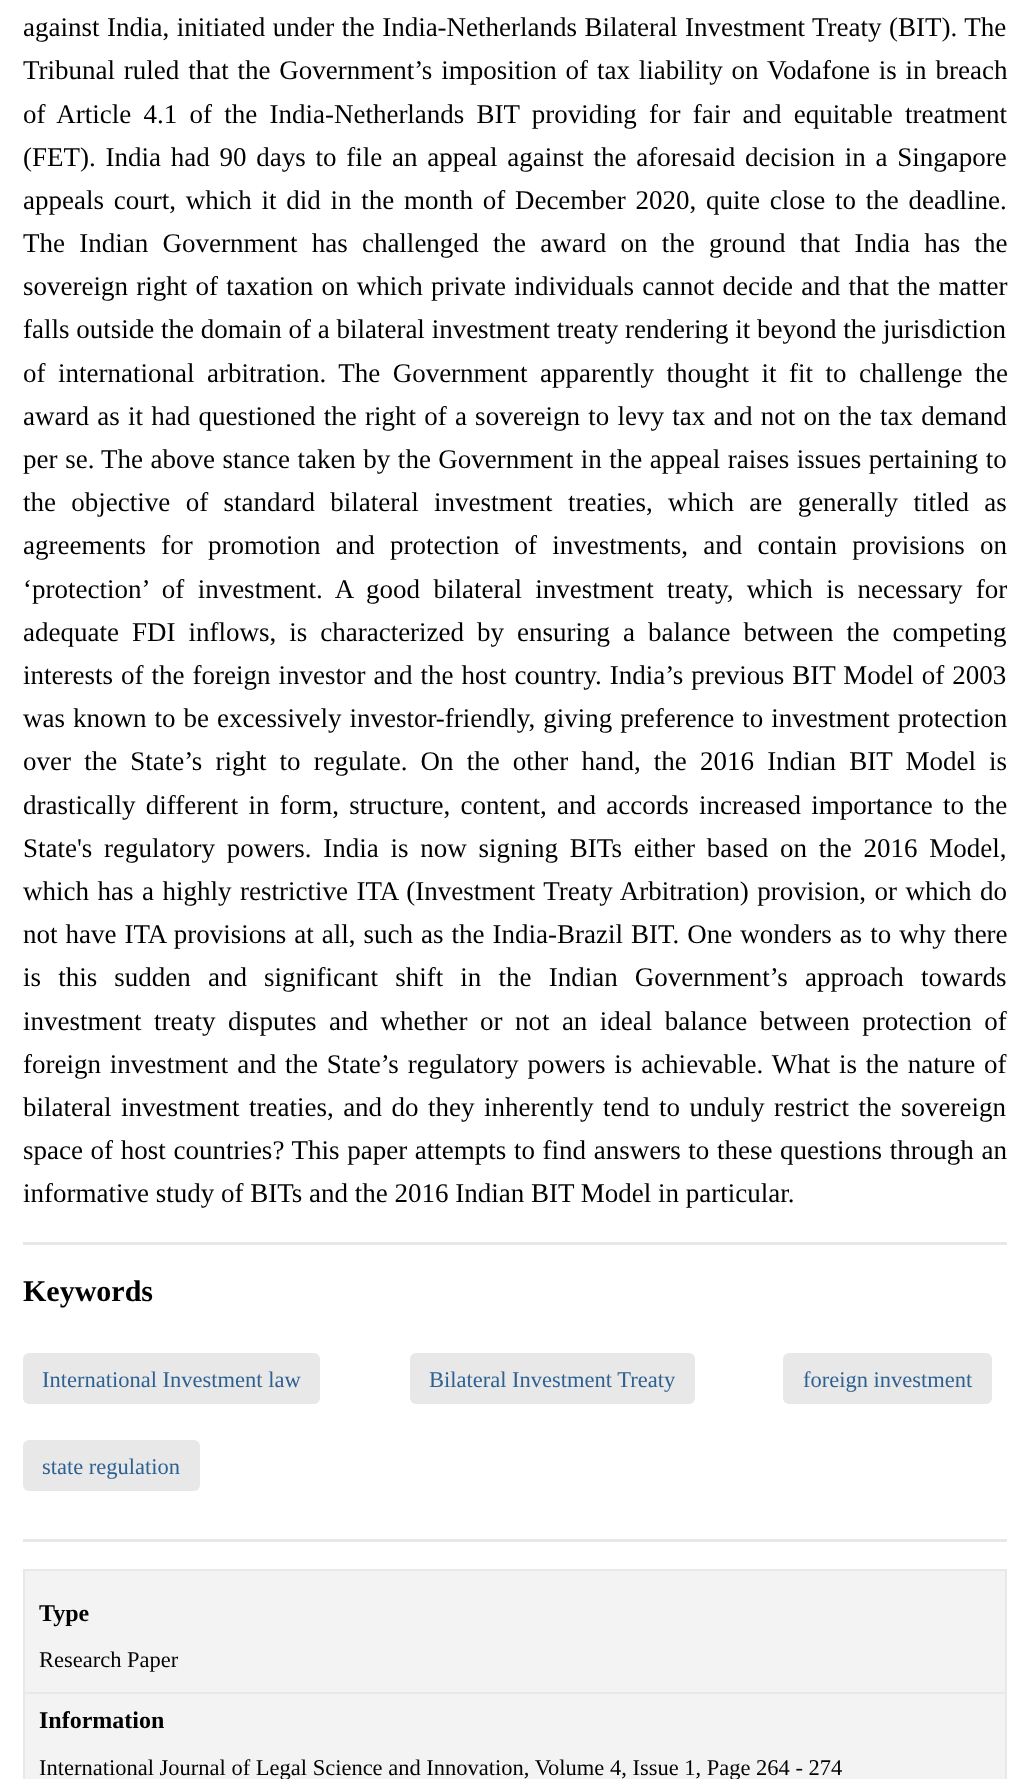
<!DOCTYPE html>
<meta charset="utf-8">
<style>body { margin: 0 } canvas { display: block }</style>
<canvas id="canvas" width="1028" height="1779"></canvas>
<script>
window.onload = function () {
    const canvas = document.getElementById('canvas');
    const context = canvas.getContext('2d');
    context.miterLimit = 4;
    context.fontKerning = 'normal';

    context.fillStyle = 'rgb(255, 255, 255)';
    context.fillRect(0, 0, 1028, 1779);
    context.fillStyle = 'rgb(232, 232, 232)';
    context.fillRect(23, 1242, 984, 3);
    context.fillRect(23, 1539, 984, 3);
    context.beginPath();
    context.roundRect(23, 1353, 297, 51, 6);
    context.fill();
    context.beginPath();
    context.roundRect(410, 1353, 285, 51, 6);
    context.fill();
    context.beginPath();
    context.roundRect(783, 1353, 209, 51, 6);
    context.fill();
    context.beginPath();
    context.roundRect(23, 1440, 177, 51, 6);
    context.fill();
    context.fillStyle = 'rgb(243, 243, 243)';
    context.beginPath();
    context.rect(24, 1570, 982, 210);
    context.fill();
    context.strokeStyle = 'rgb(232, 232, 232)';
    context.lineWidth = 2;
    context.stroke();
    context.fillStyle = 'rgb(232, 232, 232)';
    context.fillRect(24, 1692, 981, 2);
    context.wordSpacing = '0.75px';
    context.font = '27px Liberation Serif';
    context.fillStyle = 'rgb(0, 0, 0)';
    context.fillText('against India, initiated under the India-Netherlands Bilateral Investment Treaty (BIT). The', 23, 36);
    context.wordSpacing = '2.1px';
    context.fillText('Tribunal ruled that the Government’s imposition of tax liability on Vodafone is in breach', 23, 79);
    context.wordSpacing = '5.5px';
    context.fillText('of Article 4.1 of the India-Netherlands BIT providing for fair and equitable treatment', 23, 123);
    context.wordSpacing = '3px';
    context.fillText('(FET). India had 90 days to file an appeal against the aforesaid decision in a Singapore', 23, 166);
    context.fillText('appeals court, which it did in the month of December 2020, quite close to the deadline.', 23, 209);
    context.wordSpacing = '7.5px';
    context.fillText('The Indian Government has challenged the award on the ground that India has the', 23, 252);
    context.wordSpacing = '1.5px';
    context.fillText('sovereign right of taxation on which private individuals cannot decide and that the matter', 23, 295);
    context.wordSpacing = '0px';
    context.fillText('falls outside the domain of a bilateral investment treaty rendering it beyond the jurisdiction', 23, 338);
    context.wordSpacing = '5.75px';
    context.fillText('of international arbitration. The Government apparently thought it fit to challenge the', 23, 382);
    context.wordSpacing = '1.5px';
    context.fillText('award as it had questioned the right of a sovereign to levy tax and not on the tax demand', 23, 425);
    context.wordSpacing = '1px';
    context.fillText('per se.', 23, 468);
    context.wordSpacing = '0.75px';
    context.fillText('The above stance taken by the Government in the appeal raises issues pertaining to', 101, 468);
    context.wordSpacing = '8.6px';
    context.fillText('the objective of standard bilateral investment treaties, which are generally titled as', 23, 511);
    context.wordSpacing = '8.5px';
    context.fillText('agreements for promotion and protection of investments, and contain provisions on', 23, 554);
    context.wordSpacing = '6.6px';
    context.fillText('‘protection’ of investment. A good bilateral investment treaty, which is necessary for', 23, 598);
    context.wordSpacing = '6.25px';
    context.fillText('adequate FDI inflows, is characterized by ensuring a balance between the competing', 23, 641);
    context.wordSpacing = '1.25px';
    context.fillText('interests of the foreign investor and the host country. India’s previous BIT Model of 2003', 23, 684);
    context.fillText('was known to be excessively investor-friendly, giving preference to investment protection', 23, 727);
    context.wordSpacing = '6.4px';
    context.fillText('over the State’s right to regulate. On the other hand, the 2016 Indian BIT Model is', 23, 770);
    context.wordSpacing = '3.5px';
    context.fillText('drastically different in form, structure, content, and accords increased importance to the', 23, 814);
    context.wordSpacing = '5px';
    context.fillText('State\'s regulatory powers. India is now signing BITs either based on the 2016 Model,', 23, 857);
    context.wordSpacing = '1.75px';
    context.fillText('which has a highly restrictive ITA (Investment Treaty Arbitration) provision, or which do', 23, 900);
    context.wordSpacing = '1.25px';
    context.fillText('not have ITA provisions at all, such as the India-Brazil BIT. One wonders as to why there', 23, 943);
    context.wordSpacing = '10.4px';
    context.fillText('is this sudden and significant shift in the Indian Government’s approach towards', 23, 986);
    context.wordSpacing = '5.75px';
    context.fillText('investment treaty disputes and whether or not an ideal balance between protection of', 23, 1030);
    context.wordSpacing = '2.1px';
    context.fillText('foreign investment and the State’s regulatory powers is achievable. What is the nature of', 23, 1073);
    context.wordSpacing = '2.75px';
    context.fillText('bilateral investment treaties, and do they inherently tend to unduly restrict the sovereign', 23, 1116);
    context.wordSpacing = '0.9px';
    context.fillText('space of host countries? This paper attempts to find answers to these questions through an', 23, 1159);
    context.wordSpacing = '0px';
    context.fillText('informative study of BITs and the 2016 Indian BIT Model in particular.', 23, 1202);
    context.font = 'bold 30px Liberation Serif';
    context.fillText('Keywords', 23, 1301);
    context.font = '22.5px Liberation Serif';
    context.fillStyle = 'rgb(45, 97, 146)';
    context.fillText('International Investment law', 42, 1387);
    context.fillText('Bilateral Investment Treaty', 429, 1387);
    context.fillText('foreign investment', 803, 1387);
    context.fillText('state regulation', 42, 1474);
    context.font = 'bold 24px Liberation Serif';
    context.fillStyle = 'rgb(0, 0, 0)';
    context.fillText('Type', 39, 1621);
    context.font = '22.5px Liberation Serif';
    context.fillText('Research Paper', 39, 1667);
    context.font = 'bold 24px Liberation Serif';
    context.fillText('Information', 39, 1728);
    context.font = '22.5px Liberation Serif';
    context.fillText('International Journal of Legal Science and Innovation, Volume 4, Issue 1, Page 264 - 274', 39, 1775);
};
</script>
